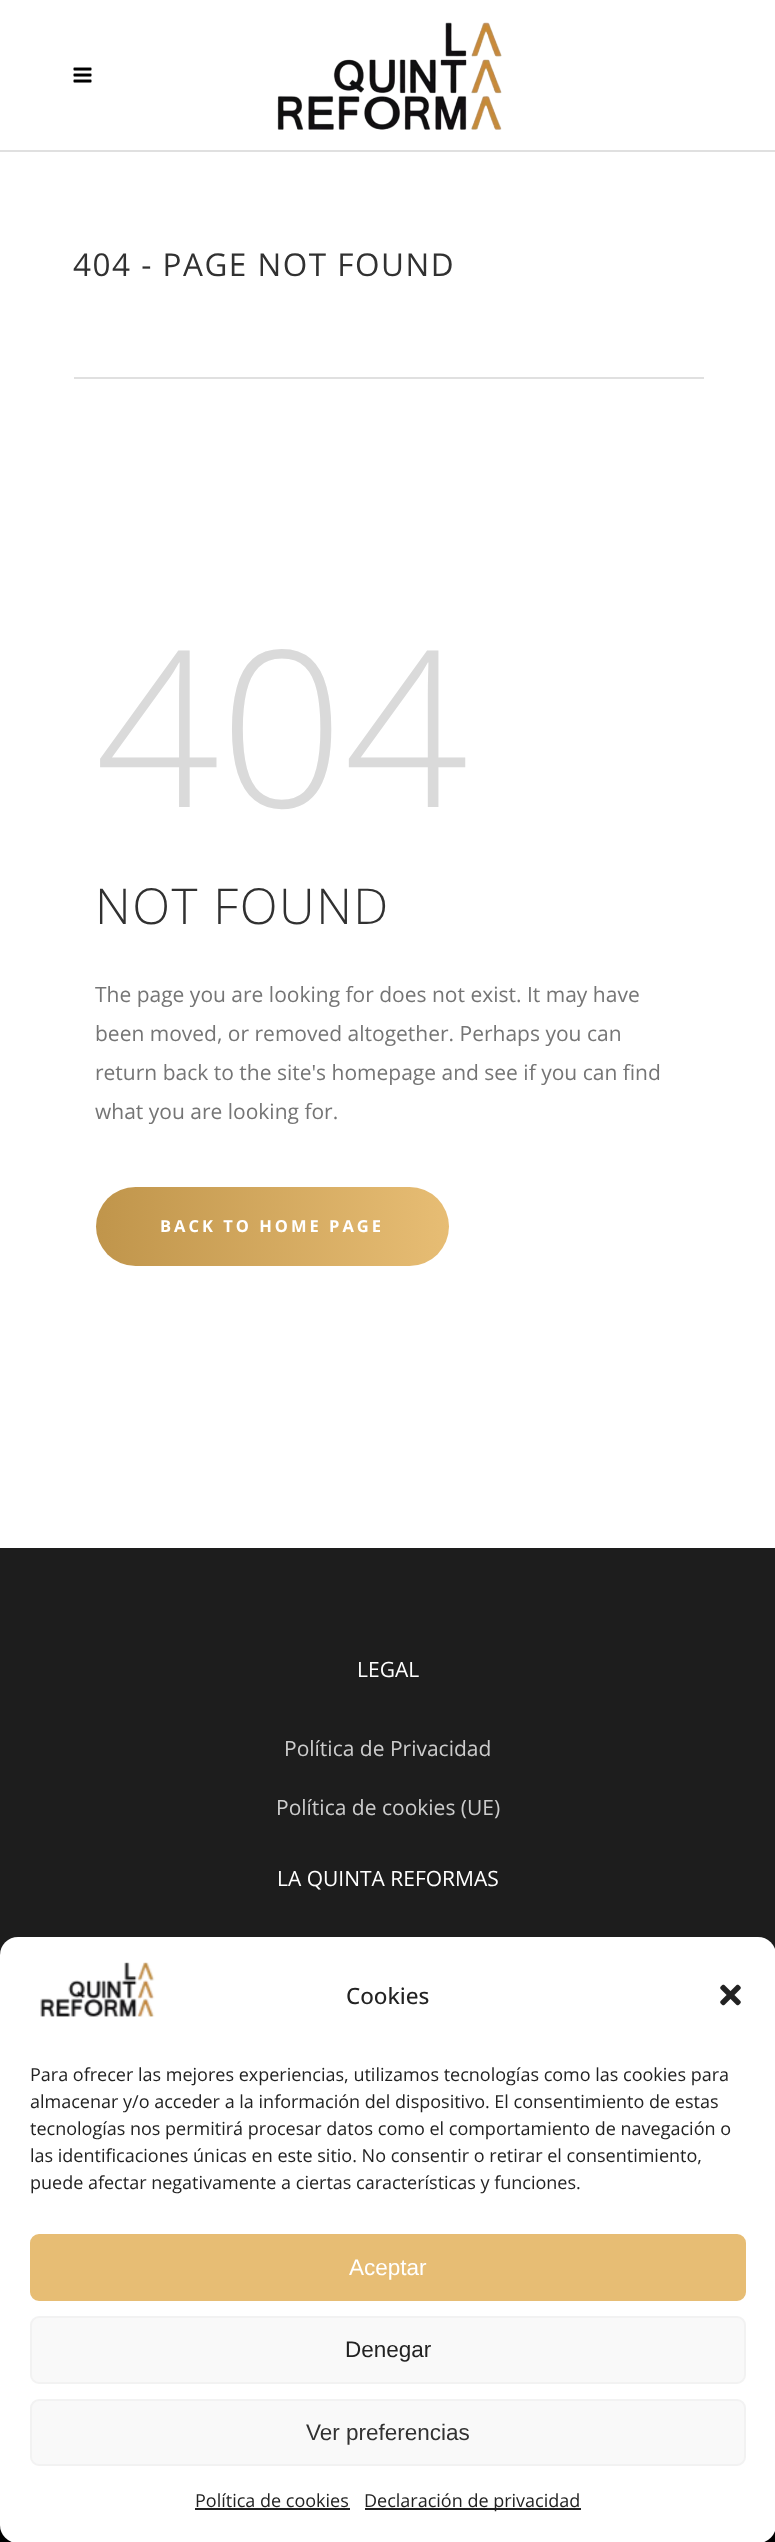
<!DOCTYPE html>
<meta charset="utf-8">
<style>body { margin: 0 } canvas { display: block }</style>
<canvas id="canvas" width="775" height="2542"></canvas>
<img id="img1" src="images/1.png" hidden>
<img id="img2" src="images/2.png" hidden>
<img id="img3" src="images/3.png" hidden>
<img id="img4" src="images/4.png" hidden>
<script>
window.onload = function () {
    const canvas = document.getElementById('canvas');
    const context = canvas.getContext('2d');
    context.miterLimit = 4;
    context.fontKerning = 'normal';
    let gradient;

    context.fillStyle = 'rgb(255, 255, 255)';
    context.fillRect(0, 0, 775, 2542);
    context.fillStyle = 'rgb(224, 224, 224)';
    context.fillRect(0, 150, 775, 2);
    context.drawImage(document.getElementById('img1'), 73, 67, 19, 16);
    context.drawImage(document.getElementById('img2'), 277, 22, 225, 108);
    context.fillRect(74, 377, 630, 2);
    gradient = context.createLinearGradient(96, 1226, 449, 1226);
    gradient.addColorStop(0, 'rgb(192, 149, 75)');
    gradient.addColorStop(1, 'rgb(231, 189, 116)');
    context.fillStyle = gradient;
    context.beginPath();
    context.roundRect(96, 1187, 353, 79, 39.5);
    context.fill();
    context.fillStyle = 'rgb(29, 29, 29)';
    context.fillRect(0, 1548, 775, 407);
    context.fillStyle = 'rgb(0, 0, 0)';
    context.fillRect(0, 2525, 775, 17);
    context.fillStyle = 'rgb(255, 255, 255)';
    context.beginPath();
    context.roundRect(0, 1937, 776, 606, 18);
    context.fill();
    context.drawImage(document.getElementById('img3'), 40, 1962, 115, 55);
    context.drawImage(document.getElementById('img4'), 720, 1984, 21, 22);
    context.fillStyle = 'rgb(231, 189, 116)';
    context.beginPath();
    context.roundRect(31, 2235, 714, 65, 8);
    context.fill();
    context.strokeStyle = 'rgb(231, 189, 116)';
    context.lineWidth = 2;
    context.stroke();
    context.fillStyle = 'rgb(249, 249, 249)';
    context.beginPath();
    context.roundRect(31, 2317, 714, 66, 8);
    context.fill();
    context.strokeStyle = 'rgb(242, 242, 242)';
    context.stroke();
    context.beginPath();
    context.roundRect(31, 2400, 714, 65, 8);
    context.fill();
    context.stroke();
    context.fillStyle = 'rgb(34, 34, 34)';
    context.fillRect(195, 2508, 155, 2);
    context.fillRect(365, 2508, 216, 2);
    context.letterSpacing = '1.5px';
    context.font = '31.5px Open Sans';
    context.fillStyle = 'rgb(49, 49, 49)';
    context.fillText('404 - PAGE NOT FOUND', 73, 276);
    context.letterSpacing = '0px';
    context.font = '300 218px Open Sans';
    context.fillStyle = 'rgb(218, 218, 218)';
    context.fillText('404', 95, 807);
    context.letterSpacing = '1.5px';
    context.font = '300 49.5px Open Sans';
    context.fillStyle = 'rgb(49, 49, 49)';
    context.fillText('NOT FOUND', 95, 924);
    context.letterSpacing = '0px';
    context.font = '21px Open Sans';
    context.fillStyle = 'rgb(117, 117, 117)';
    context.fillText('The page you are looking for does not exist. It may have', 95, 1002);
    context.fillText('been moved, or removed altogether. Perhaps you can', 95, 1041);
    context.fillText('return back to the site\'s homepage and see if you can find', 95, 1080);
    context.fillText('what you are looking for.', 95, 1119);
    context.letterSpacing = '3px';
    context.font = 'bold 16.5px Open Sans';
    context.fillStyle = 'rgb(255, 255, 255)';
    context.fillText('BACK TO HOME PAGE', 160, 1232);
    context.letterSpacing = '0px';
    context.font = '21px Open Sans';
    context.fillText('LEGAL', 357, 1677);
    context.fillStyle = 'rgb(204, 204, 204)';
    context.fillText('Política de Privacidad', 284, 1756);
    context.fillText('Política de cookies (UE)', 276, 1815);
    context.fillStyle = 'rgb(255, 255, 255)';
    context.fillText('LA QUINTA REFORMAS', 277, 1886);
    context.font = '500 22.5px Open Sans';
    context.fillStyle = 'rgb(34, 34, 34)';
    context.fillText('Cookies', 346, 2004);
    context.font = '18px Open Sans';
    context.fillText('Para ofrecer las mejores experiencias, utilizamos tecnologías como las cookies para', 30, 2081);
    context.fillText('almacenar y/o acceder a la información del dispositivo. El consentimiento de estas', 30, 2108);
    context.fillText('tecnologías nos permitirá procesar datos como el comportamiento de navegación o', 30, 2135);
    context.fillText('las identificaciones únicas en este sitio. No consentir o retirar el consentimiento,', 30, 2162);
    context.fillText('puede afectar negativamente a ciertas características y funciones.', 30, 2189);
    context.font = '22.5px Liberation Sans';
    context.fillStyle = 'rgb(255, 255, 255)';
    context.fillText('Aceptar', 349, 2275);
    context.fillStyle = 'rgb(34, 34, 34)';
    context.fillText('Denegar', 345, 2357);
    context.fillStyle = 'rgb(49, 49, 49)';
    context.fillText('Ver preferencias', 306, 2440);
    context.font = '18px Open Sans';
    context.fillStyle = 'rgb(34, 34, 34)';
    context.fillText('Política de cookies', 195, 2507);
    context.fillText('Declaración de privacidad', 364, 2507);
};
</script>
